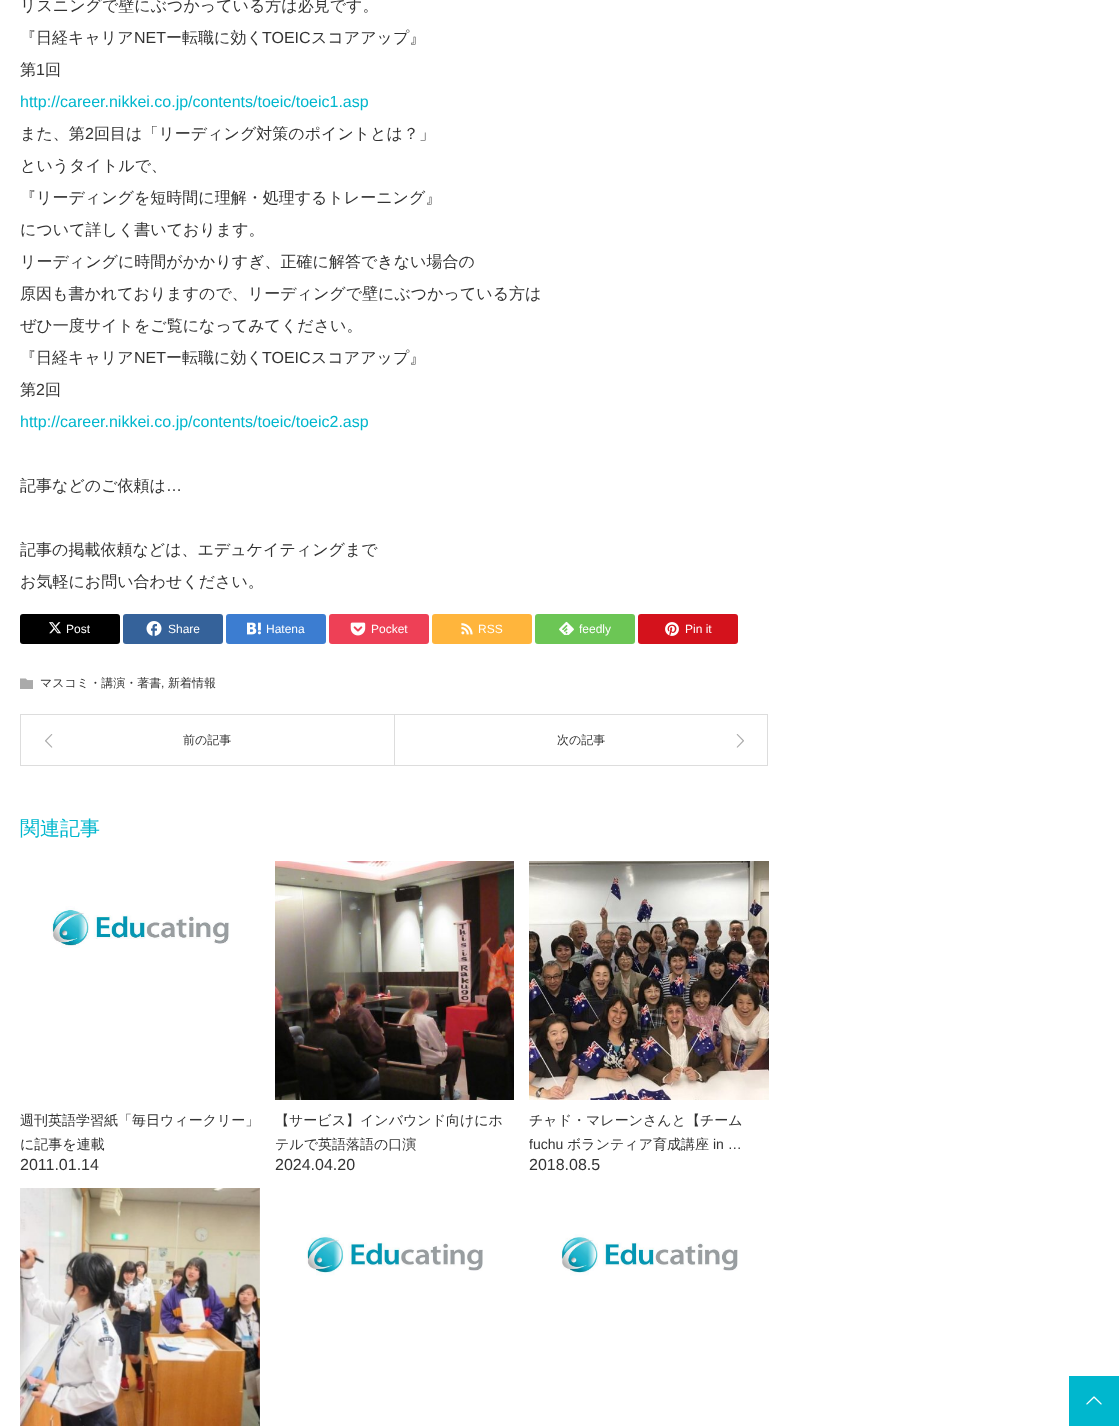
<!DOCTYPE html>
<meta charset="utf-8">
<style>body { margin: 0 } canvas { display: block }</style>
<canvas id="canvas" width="1119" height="1426"></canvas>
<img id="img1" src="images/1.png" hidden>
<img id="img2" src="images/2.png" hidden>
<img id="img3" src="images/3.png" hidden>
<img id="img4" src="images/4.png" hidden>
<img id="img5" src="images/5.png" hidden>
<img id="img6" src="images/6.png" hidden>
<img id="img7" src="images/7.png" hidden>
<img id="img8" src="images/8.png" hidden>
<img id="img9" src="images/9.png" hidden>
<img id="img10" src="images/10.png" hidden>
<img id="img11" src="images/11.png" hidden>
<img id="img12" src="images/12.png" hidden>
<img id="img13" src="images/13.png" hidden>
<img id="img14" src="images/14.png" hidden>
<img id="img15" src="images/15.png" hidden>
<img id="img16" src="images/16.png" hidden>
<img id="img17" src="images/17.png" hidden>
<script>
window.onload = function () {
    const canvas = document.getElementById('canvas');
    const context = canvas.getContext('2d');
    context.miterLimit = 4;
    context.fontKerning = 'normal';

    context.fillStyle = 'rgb(255, 255, 255)';
    context.fillRect(0, 0, 1119, 1426);
    context.fillStyle = 'rgb(0, 0, 0)';
    context.beginPath();
    context.roundRect(20, 614, 100, 30, 3);
    context.fill();
    context.drawImage(document.getElementById('img1'), 49, 622, 12, 12);
    context.fillStyle = 'rgb(53, 98, 154)';
    context.beginPath();
    context.roundRect(123, 614, 100, 30, 3);
    context.fill();
    context.drawImage(document.getElementById('img2'), 146, 621, 16, 15);
    context.fillStyle = 'rgb(60, 125, 209)';
    context.beginPath();
    context.roundRect(226, 614, 100, 30, 3);
    context.fill();
    context.drawImage(document.getElementById('img3'), 247, 622, 14, 13);
    context.fillStyle = 'rgb(238, 64, 86)';
    context.beginPath();
    context.roundRect(329, 614, 100, 30, 3);
    context.fill();
    context.drawImage(document.getElementById('img4'), 350, 622, 16, 14);
    context.fillStyle = 'rgb(255, 181, 60)';
    context.beginPath();
    context.roundRect(432, 614, 100, 30, 3);
    context.fill();
    context.drawImage(document.getElementById('img5'), 461, 623, 12, 12);
    context.fillStyle = 'rgb(108, 198, 85)';
    context.beginPath();
    context.roundRect(535, 614, 100, 30, 3);
    context.fill();
    context.drawImage(document.getElementById('img6'), 559, 621, 15, 14);
    context.fillStyle = 'rgb(212, 18, 28)';
    context.beginPath();
    context.roundRect(638, 614, 100, 30, 3);
    context.fill();
    context.drawImage(document.getElementById('img7'), 665, 622, 14, 14);
    context.drawImage(document.getElementById('img8'), 20, 678, 13, 11);
    context.strokeStyle = 'rgb(221, 221, 221)';
    context.strokeRect(20.5, 714.5, 374, 51);
    context.drawImage(document.getElementById('img9'), 45, 734, 8, 14);
    context.strokeRect(394.5, 714.5, 373, 51);
    context.drawImage(document.getElementById('img10'), 736, 734, 8, 14);
    context.drawImage(document.getElementById('img11'), 51, 906, 179, 42);
    context.drawImage(document.getElementById('img12'), 275, 861, 239, 239);
    context.drawImage(document.getElementById('img13'), 529, 861, 240, 239);
    context.drawImage(document.getElementById('img14'), 20, 1188, 240, 238);
    context.drawImage(document.getElementById('img15'), 306, 1234, 177, 42);
    context.drawImage(document.getElementById('img16'), 560, 1234, 178, 42);
    context.fillStyle = 'rgb(0, 183, 206)';
    context.fillRect(1069, 1376, 50, 50);
    context.drawImage(document.getElementById('img17'), 1086, 1396, 16, 9);
    context.font = '500 16px WenQuanYi Zen Hei';
    context.fillStyle = 'rgb(51, 51, 51)';
    context.fillText('リスニングで壁にぶつかっている方は必見です。', 20, 11);
    context.fillText('『日経キャリア', 20, 43);
    context.font = '16px Liberation Sans';
    context.fillText('NET', 134, 43);
    context.font = '500 16px WenQuanYi Zen Hei';
    context.fillText('ー転職に効く', 166, 43);
    context.font = '16px Liberation Sans';
    context.fillText('TOEIC', 262, 43);
    context.font = '500 16px WenQuanYi Zen Hei';
    context.fillText('スコアアップ』', 311, 43);
    context.fillText('第', 20, 75);
    context.font = '16px Liberation Sans';
    context.fillText('1', 36, 75);
    context.font = '500 16px WenQuanYi Zen Hei';
    context.fillText('回', 45, 75);
    context.font = '16px Liberation Sans';
    context.fillStyle = 'rgb(0, 183, 206)';
    context.fillText('http://career.nikkei.co.jp/contents/toeic/toeic1.asp', 20, 107);
    context.font = '500 16px WenQuanYi Zen Hei';
    context.fillStyle = 'rgb(51, 51, 51)';
    context.fillText('また、第', 20, 139);
    context.font = '16px Liberation Sans';
    context.fillText('2', 85, 139);
    context.font = '500 16px WenQuanYi Zen Hei';
    context.fillText('回目は「リーディング対策のポイントとは？」', 94, 139);
    context.fillText('というタイトルで、', 20, 171);
    context.fillText('『リーディングを短時間に理解・処理するトレーニング』', 20, 203);
    context.fillText('について詳しく書いております。', 20, 235);
    context.fillText('リーディングに時間がかかりすぎ、正確に解答できない場合の', 20, 267);
    context.fillText('原因も書かれておりますので、リーディングで壁にぶつかっている方は', 20, 299);
    context.fillText('ぜひ一度サイトをご覧になってみてください。', 20, 331);
    context.fillText('『日経キャリア', 20, 363);
    context.font = '16px Liberation Sans';
    context.fillText('NET', 134, 363);
    context.font = '500 16px WenQuanYi Zen Hei';
    context.fillText('ー転職に効く', 166, 363);
    context.font = '16px Liberation Sans';
    context.fillText('TOEIC', 262, 363);
    context.font = '500 16px WenQuanYi Zen Hei';
    context.fillText('スコアアップ』', 311, 363);
    context.fillText('第', 20, 395);
    context.font = '16px Liberation Sans';
    context.fillText('2', 36, 395);
    context.font = '500 16px WenQuanYi Zen Hei';
    context.fillText('回', 45, 395);
    context.font = '16px Liberation Sans';
    context.fillStyle = 'rgb(0, 183, 206)';
    context.fillText('http://career.nikkei.co.jp/contents/toeic/toeic2.asp', 20, 427);
    context.font = '500 16px WenQuanYi Zen Hei';
    context.fillStyle = 'rgb(51, 51, 51)';
    context.fillText('記事などのご依頼は', 20, 491);
    context.font = '16px Liberation Sans';
    context.fillText('…', 166, 491);
    context.font = '500 16px WenQuanYi Zen Hei';
    context.fillText('記事の掲載依頼などは、エデュケイティングまで', 20, 555);
    context.fillText('お気軽にお問い合わせください。', 20, 587);
    context.font = '12px Liberation Sans';
    context.fillStyle = 'rgb(255, 255, 255)';
    context.fillText('Post', 66, 633);
    context.fillText('Share', 168, 633);
    context.fillText('Hatena', 266, 633);
    context.fillText('Pocket', 371, 633);
    context.fillText('RSS', 478, 633);
    context.fillText('feedly', 579, 633);
    context.fillText('Pin it', 685, 633);
    context.font = '500 12px WenQuanYi Zen Hei';
    context.fillStyle = 'rgb(51, 51, 51)';
    context.fillText('マスコミ・講演・著書', 40, 687);
    context.font = '12px Liberation Sans';
    context.fillText(',', 161, 687);
    context.font = '500 12px WenQuanYi Zen Hei';
    context.fillText('新着情報', 168, 687);
    context.fillText('前の記事', 183, 744);
    context.fillText('次の記事', 557, 744);
    context.font = '500 20px WenQuanYi Zen Hei';
    context.fillStyle = 'rgb(0, 183, 206)';
    context.fillText('関連記事', 20, 835);
    context.font = '500 14px WenQuanYi Zen Hei';
    context.fillStyle = 'rgb(51, 51, 51)';
    context.fillText('週刊英語学習紙「毎日ウィークリー」', 20, 1125);
    context.fillText('に記事を連載', 20, 1149);
    context.font = '16px Liberation Sans';
    context.fillText('2011.01.14', 20, 1170);
    context.font = '500 14px WenQuanYi Zen Hei';
    context.fillText('【サービス】インバウンド向けにホ', 275, 1125);
    context.fillText('テルで英語落語の口演', 275, 1149);
    context.font = '16px Liberation Sans';
    context.fillText('2024.04.20', 275, 1170);
    context.font = '500 14px WenQuanYi Zen Hei';
    context.fillText('チャド・マレーンさんと【チーム', 529, 1125);
    context.font = '14px Liberation Sans';
    context.fillText('fuchu', 529, 1149);
    context.font = '500 14px WenQuanYi Zen Hei';
    context.fillText('ボランティア育成講座', 567, 1149);
    context.font = '14px Liberation Sans';
    context.fillText('in …', 713, 1149);
    context.font = '16px Liberation Sans';
    context.fillText('2018.08.5', 529, 1170);
};
</script>
